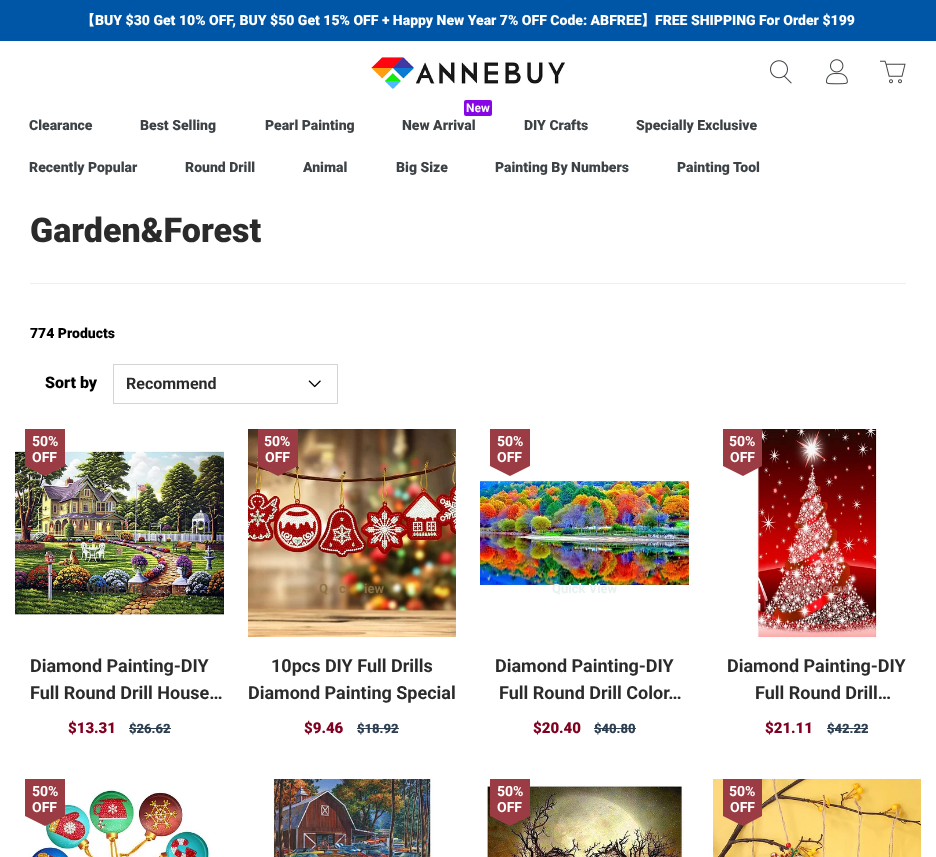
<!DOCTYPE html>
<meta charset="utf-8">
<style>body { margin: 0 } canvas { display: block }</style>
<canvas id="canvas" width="936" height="857"></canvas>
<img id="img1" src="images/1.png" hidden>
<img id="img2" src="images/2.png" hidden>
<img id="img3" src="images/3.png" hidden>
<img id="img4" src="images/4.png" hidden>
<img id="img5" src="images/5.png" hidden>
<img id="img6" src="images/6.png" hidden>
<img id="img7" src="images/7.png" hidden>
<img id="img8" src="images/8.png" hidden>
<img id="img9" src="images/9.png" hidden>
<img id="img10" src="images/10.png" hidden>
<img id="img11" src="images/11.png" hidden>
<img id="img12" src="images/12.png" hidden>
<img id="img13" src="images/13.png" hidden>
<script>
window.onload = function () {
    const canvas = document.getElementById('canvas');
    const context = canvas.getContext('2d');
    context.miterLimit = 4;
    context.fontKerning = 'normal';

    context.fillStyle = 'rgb(255, 255, 255)';
    context.fillRect(0, 0, 936, 857);
    context.fillStyle = 'rgb(0, 86, 166)';
    context.fillRect(0, 0, 936, 41);
    context.drawImage(document.getElementById('img1'), 371, 57, 194, 32);
    context.drawImage(document.getElementById('img2'), 770, 60, 22, 24);
    context.drawImage(document.getElementById('img3'), 826, 59, 22, 26);
    context.drawImage(document.getElementById('img4'), 880, 60, 26, 24);
    context.fillStyle = 'rgb(136, 5, 230)';
    context.beginPath();
    context.roundRect(464, 100, 28, 16, 2);
    context.fill();
    context.fillStyle = 'rgb(238, 238, 238)';
    context.fillRect(30, 283, 876, 1);
    context.strokeStyle = 'rgb(212, 212, 212)';
    context.strokeRect(113.5, 364.5, 224, 39);
    context.drawImage(document.getElementById('img5'), 308, 380, 13, 8);
    context.drawImage(document.getElementById('img6'), 15, 450, 209, 167);
    context.fillStyle = 'rgb(155, 60, 68)';
    context.beginPath();
    context.moveTo(25, 429);
    context.lineTo(25, 466);
    context.lineTo(45, 476);
    context.lineTo(65, 466);
    context.lineTo(65, 429);
    context.closePath();
    context.fill();
    context.fillStyle = 'rgb(44, 62, 80)';
    context.fillRect(129, 728, 42, 1);
    context.drawImage(document.getElementById('img7'), 248, 429, 208, 208);
    context.fillStyle = 'rgb(155, 60, 68)';
    context.beginPath();
    context.moveTo(258, 429);
    context.lineTo(298, 429);
    context.lineTo(298, 466);
    context.lineTo(278, 476);
    context.lineTo(258, 466);
    context.closePath();
    context.fill();
    context.fillStyle = 'rgb(44, 62, 80)';
    context.fillRect(357, 728, 42, 1);
    context.fillStyle = 'rgb(155, 60, 68)';
    context.beginPath();
    context.moveTo(490, 429);
    context.lineTo(490, 466);
    context.lineTo(510, 476);
    context.lineTo(530, 466);
    context.lineTo(530, 429);
    context.closePath();
    context.fill();
    context.drawImage(document.getElementById('img8'), 480, 480, 209, 106);
    context.fillStyle = 'rgb(44, 62, 80)';
    context.fillRect(594, 728, 42, 1);
    context.drawImage(document.getElementById('img9'), 755, 429, 125, 208);
    context.fillStyle = 'rgb(155, 60, 68)';
    context.beginPath();
    context.moveTo(723, 429);
    context.lineTo(762, 429);
    context.lineTo(762, 466);
    context.lineTo(743, 476);
    context.lineTo(723, 466);
    context.closePath();
    context.fill();
    context.fillStyle = 'rgb(44, 62, 80)';
    context.fillRect(827, 728, 41, 1);
    context.drawImage(document.getElementById('img10'), 29, 789, 181, 68);
    context.fillStyle = 'rgb(155, 60, 68)';
    context.beginPath();
    context.moveTo(25, 779);
    context.lineTo(25, 816);
    context.lineTo(45, 826);
    context.lineTo(65, 816);
    context.lineTo(65, 779);
    context.closePath();
    context.fill();
    context.drawImage(document.getElementById('img11'), 271, 779, 162, 78);
    context.drawImage(document.getElementById('img12'), 486, 784, 198, 73);
    context.beginPath();
    context.moveTo(490, 779);
    context.lineTo(490, 816);
    context.lineTo(510, 826);
    context.lineTo(530, 816);
    context.lineTo(530, 779);
    context.closePath();
    context.fill();
    context.drawImage(document.getElementById('img13'), 713, 779, 208, 78);
    context.beginPath();
    context.moveTo(723, 779);
    context.lineTo(762, 779);
    context.lineTo(762, 816);
    context.lineTo(743, 826);
    context.lineTo(723, 816);
    context.closePath();
    context.fill();
    context.font = 'bold 14px WenQuanYi Zen Hei';
    context.fillStyle = 'rgb(255, 255, 255)';
    context.fillText('【', 81, 25);
    context.font = '900 14px Roboto';
    context.fillText('BUY $30 Get 10% OFF, BUY $50 Get 15% OFF + Happy New Year 7% OFF Code: ABFREE', 95, 25);
    context.font = 'bold 14px WenQuanYi Zen Hei';
    context.fillText('】', 641, 25);
    context.font = '900 14px Roboto';
    context.fillText('FREE SHIPPING For Order $199', 655, 25);
    context.fillStyle = 'rgb(61, 66, 70)';
    context.fillText('Clearance', 29, 130);
    context.fillText('Best Selling', 140, 130);
    context.fillText('Pearl Painting', 265, 130);
    context.font = 'bold 12px Roboto';
    context.fillStyle = 'rgb(255, 255, 255)';
    context.fillText('New', 466, 112);
    context.font = '900 14px Roboto';
    context.fillStyle = 'rgb(61, 66, 70)';
    context.fillText('New Arrival', 402, 130);
    context.fillText('DIY Crafts', 524, 130);
    context.fillText('Specially Exclusive', 636, 130);
    context.fillText('Recently Popular', 29, 172);
    context.fillText('Round Drill', 185, 172);
    context.fillText('Animal', 303, 172);
    context.fillText('Big Size', 396, 172);
    context.fillText('Painting By Numbers', 495, 172);
    context.fillText('Painting Tool', 677, 172);
    context.font = '900 34px Roboto';
    context.fillStyle = 'rgb(43, 43, 43)';
    context.fillText('Garden&Forest', 30, 242);
    context.font = '900 14px Roboto';
    context.fillStyle = 'rgb(0, 0, 0)';
    context.fillText('774 Products', 30, 338);
    context.font = '900 16px Roboto';
    context.fillText('Sort by', 45, 388);
    context.font = 'bold 16px Roboto';
    context.fillStyle = 'rgb(43, 43, 43)';
    context.fillText('Recommend', 126, 389);
    context.font = 'bold 14px Roboto';
    context.fillStyle = 'rgb(255, 255, 255)';
    context.fillText('50%', 32, 446);
    context.fillText('OFF', 32, 462);
    context.font = 'bold 13px Roboto';
    context.fillStyle = 'rgb(74, 65, 58)';
    context.fillText('Quick View', 87, 593);
    context.font = 'bold 18px Roboto';
    context.fillStyle = 'rgb(43, 43, 43)';
    context.fillText('Diamond Painting-DIY', 30, 672);
    context.fillText('Full Round Drill House…', 30, 699);
    context.font = '900 15px Roboto';
    context.fillStyle = 'rgb(128, 0, 32)';
    context.fillText('$13.31', 68, 733);
    context.font = '900 13px Roboto';
    context.fillStyle = 'rgb(44, 62, 80)';
    context.fillText('$26.62', 129, 733);
    context.font = 'bold 14px Roboto';
    context.fillStyle = 'rgb(255, 255, 255)';
    context.fillText('50%', 264, 446);
    context.fillText('OFF', 265, 462);
    context.font = 'bold 13px Roboto';
    context.fillStyle = 'rgb(141, 114, 69)';
    context.fillText('Q', 319, 593);
    context.fillText('c', 339, 593);
    context.fillText('iew', 364, 593);
    context.font = 'bold 18px Roboto';
    context.fillStyle = 'rgb(43, 43, 43)';
    context.fillText('10pcs DIY Full Drills', 271, 672);
    context.fillText('Diamond Painting Special', 248, 699);
    context.font = '900 15px Roboto';
    context.fillStyle = 'rgb(128, 0, 32)';
    context.fillText('$9.46', 304, 733);
    context.font = '900 13px Roboto';
    context.fillStyle = 'rgb(44, 62, 80)';
    context.fillText('$18.92', 357, 733);
    context.font = 'bold 14px Roboto';
    context.fillStyle = 'rgb(255, 255, 255)';
    context.fillText('50%', 497, 446);
    context.fillText('OFF', 497, 462);
    context.font = 'bold 13px Roboto';
    context.fillStyle = 'rgb(233, 241, 240)';
    context.fillText('Quick View', 552, 593);
    context.font = 'bold 18px Roboto';
    context.fillStyle = 'rgb(43, 43, 43)';
    context.fillText('Diamond Painting-DIY', 495, 672);
    context.fillText('Full Round Drill Color…', 499, 699);
    context.font = '900 15px Roboto';
    context.fillStyle = 'rgb(128, 0, 32)';
    context.fillText('$20.40', 533, 733);
    context.font = '900 13px Roboto';
    context.fillStyle = 'rgb(44, 62, 80)';
    context.fillText('$40.80', 594, 733);
    context.font = 'bold 14px Roboto';
    context.fillStyle = 'rgb(255, 255, 255)';
    context.fillText('50%', 729, 446);
    context.fillText('OFF', 730, 462);
    context.font = 'bold 13px Roboto';
    context.fillStyle = 'rgb(177, 108, 103)';
    context.fillText('Quick View', 784, 593);
    context.font = 'bold 18px Roboto';
    context.fillStyle = 'rgb(43, 43, 43)';
    context.fillText('Diamond Painting-DIY', 727, 672);
    context.fillText('Full Round Drill…', 755, 699);
    context.font = '900 15px Roboto';
    context.fillStyle = 'rgb(128, 0, 32)';
    context.fillText('$21.11', 765, 733);
    context.font = '900 13px Roboto';
    context.fillStyle = 'rgb(44, 62, 80)';
    context.fillText('$42.22', 827, 733);
    context.font = 'bold 14px Roboto';
    context.fillStyle = 'rgb(255, 255, 255)';
    context.fillText('50%', 32, 796);
    context.fillText('OFF', 32, 812);
    context.fillText('50%', 497, 796);
    context.fillText('OFF', 497, 812);
    context.fillText('50%', 729, 796);
    context.fillText('OFF', 730, 812);
};
</script>
